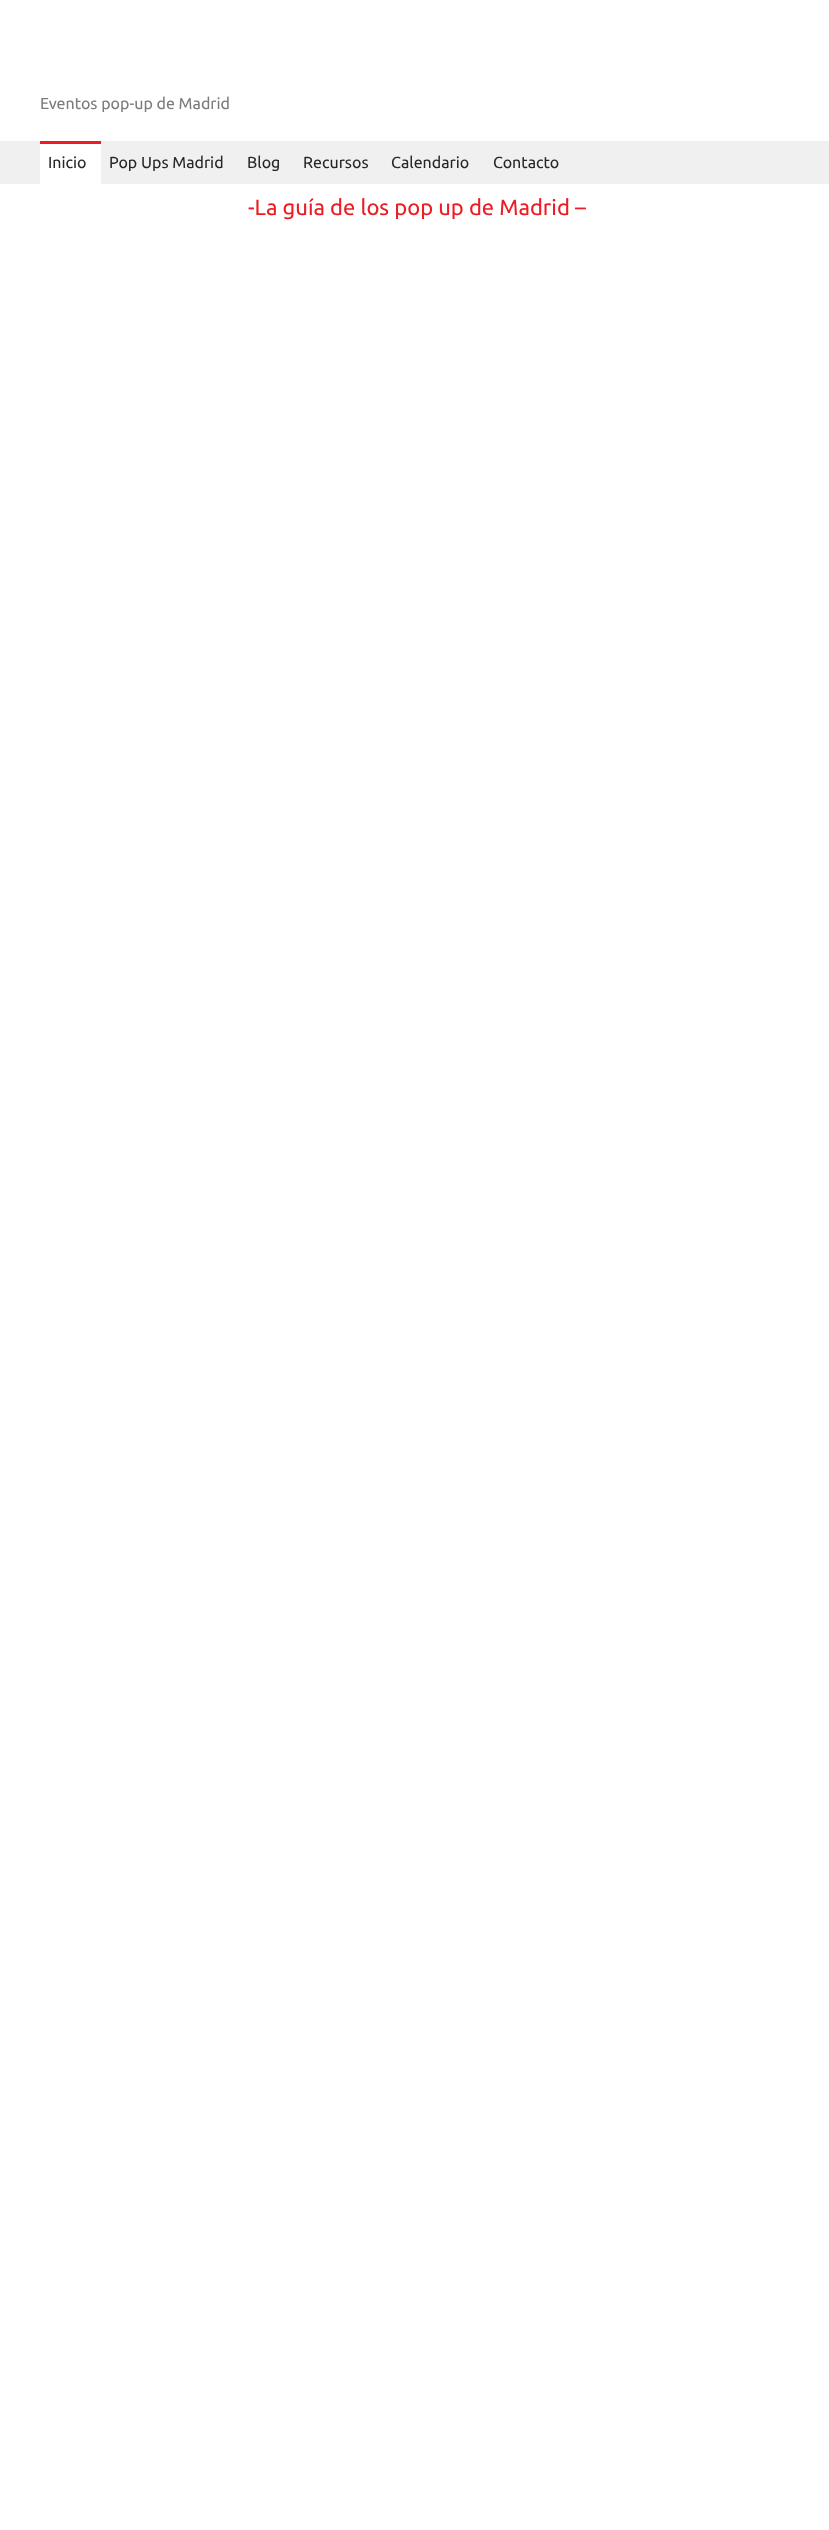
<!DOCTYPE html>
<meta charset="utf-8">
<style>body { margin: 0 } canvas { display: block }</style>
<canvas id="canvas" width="829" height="2530"></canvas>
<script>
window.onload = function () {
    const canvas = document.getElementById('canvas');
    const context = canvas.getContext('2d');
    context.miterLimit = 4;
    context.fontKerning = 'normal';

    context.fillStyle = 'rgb(255, 255, 255)';
    context.fillRect(0, 0, 829, 2530);
    context.fillStyle = 'rgb(240, 240, 240)';
    context.fillRect(0, 141, 829, 43);
    context.fillStyle = 'rgb(255, 255, 255)';
    context.fillRect(40, 144, 61, 40);
    context.fillStyle = 'rgb(237, 28, 36)';
    context.fillRect(40, 141, 61, 3);
    context.font = '16px Ubuntu';
    context.fillStyle = 'rgb(124, 124, 124)';
    context.fillText('Eventos pop-up de Madrid', 40, 109);
    context.fillStyle = 'rgb(37, 40, 42)';
    context.fillText('Inicio', 48, 168);
    context.fillText('Pop Ups Madrid', 109, 168);
    context.fillText('Blog', 247, 168);
    context.fillText('Recursos', 303, 168);
    context.fillText('Calendario', 391, 168);
    context.fillText('Contacto', 493, 168);
    context.font = '22px Ubuntu';
    context.fillStyle = 'rgb(237, 28, 36)';
    context.fillText('-La guía de los pop up de Madrid –', 248, 215);
};
</script>
